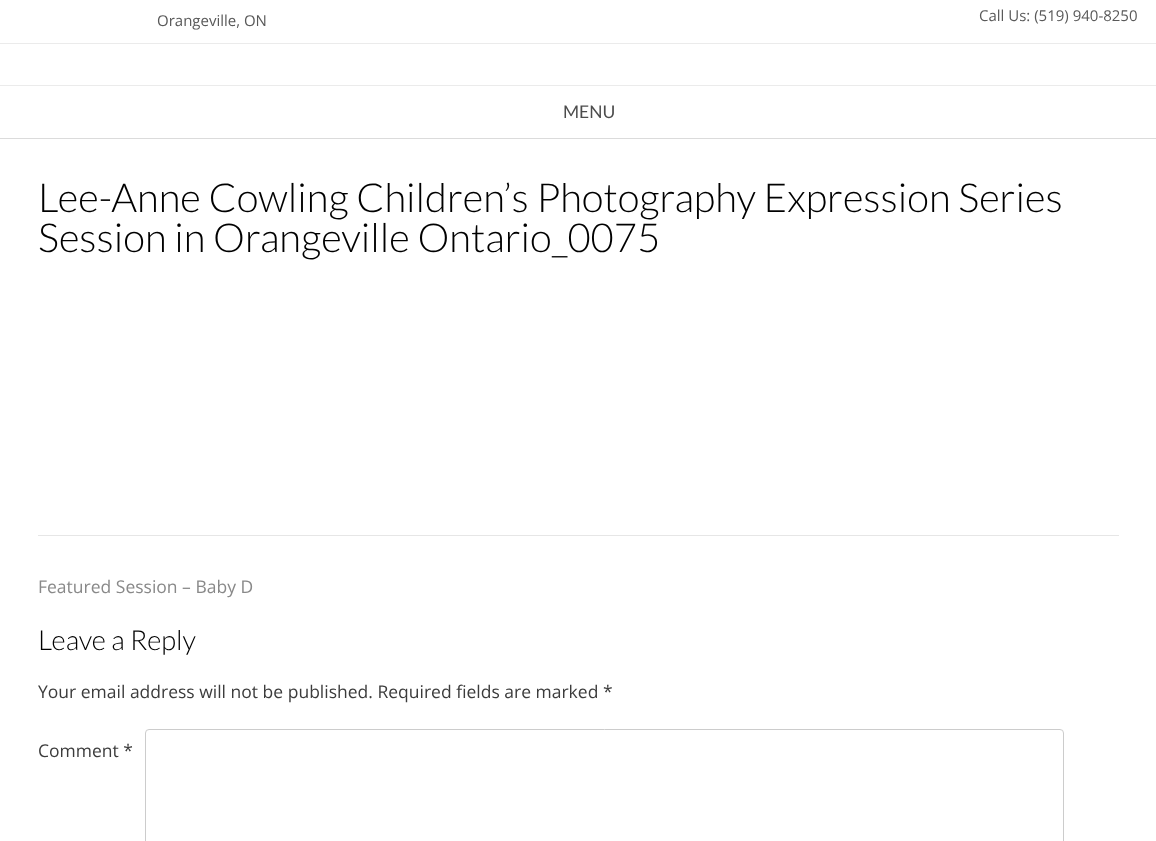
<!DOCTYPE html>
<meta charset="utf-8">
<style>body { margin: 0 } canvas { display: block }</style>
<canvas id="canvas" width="1156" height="841"></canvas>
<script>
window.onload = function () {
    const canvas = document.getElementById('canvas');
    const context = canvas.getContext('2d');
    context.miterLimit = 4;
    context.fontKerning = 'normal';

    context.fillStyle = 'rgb(255, 255, 255)';
    context.fillRect(0, 0, 1156, 841);
    context.fillStyle = 'rgb(219, 219, 219)';
    context.fillRect(0, 138, 1156, 1);
    context.fillStyle = 'rgb(235, 235, 235)';
    context.fillRect(0, 43, 1156, 1);
    context.fillRect(0, 85, 1156, 1);
    context.fillStyle = 'rgb(230, 230, 230)';
    context.fillRect(38, 535, 1081, 1);
    context.beginPath();
    context.roundRect(145.5, 729.5, 918, 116, 3.5);
    context.strokeStyle = 'rgb(204, 204, 204)';
    context.stroke();
    context.font = '15px Open Sans';
    context.fillStyle = 'rgb(89, 89, 89)';
    context.fillText('Orangeville, ON', 157, 26);
    context.fillText('Call Us: (519) 940-8250', 979, 21);
    context.font = '17.5px Lato';
    context.fillStyle = 'rgb(76, 76, 76)';
    context.fillText('MENU', 563, 118);
    context.font = '300 40px Lato';
    context.fillStyle = 'rgb(0, 0, 0)';
    context.fillText('Lee-Anne Cowling Children’s Photography Expression Series', 38, 212);
    context.fillText('Session in Orangeville Ontario_0075', 38, 252);
    context.font = '17.5px Open Sans';
    context.fillStyle = 'rgb(137, 137, 137)';
    context.fillText('Featured Session – Baby D', 38, 593);
    context.font = '300 27.5px Lato';
    context.fillStyle = 'rgb(0, 0, 0)';
    context.fillText('Leave a Reply', 38, 650);
    context.font = '17.5px Open Sans';
    context.fillStyle = 'rgb(60, 60, 60)';
    context.fillText('Your email address will not be published. Required fields are marked *', 38, 698);
    context.fillText('Comment *', 38, 757);
};
</script>
